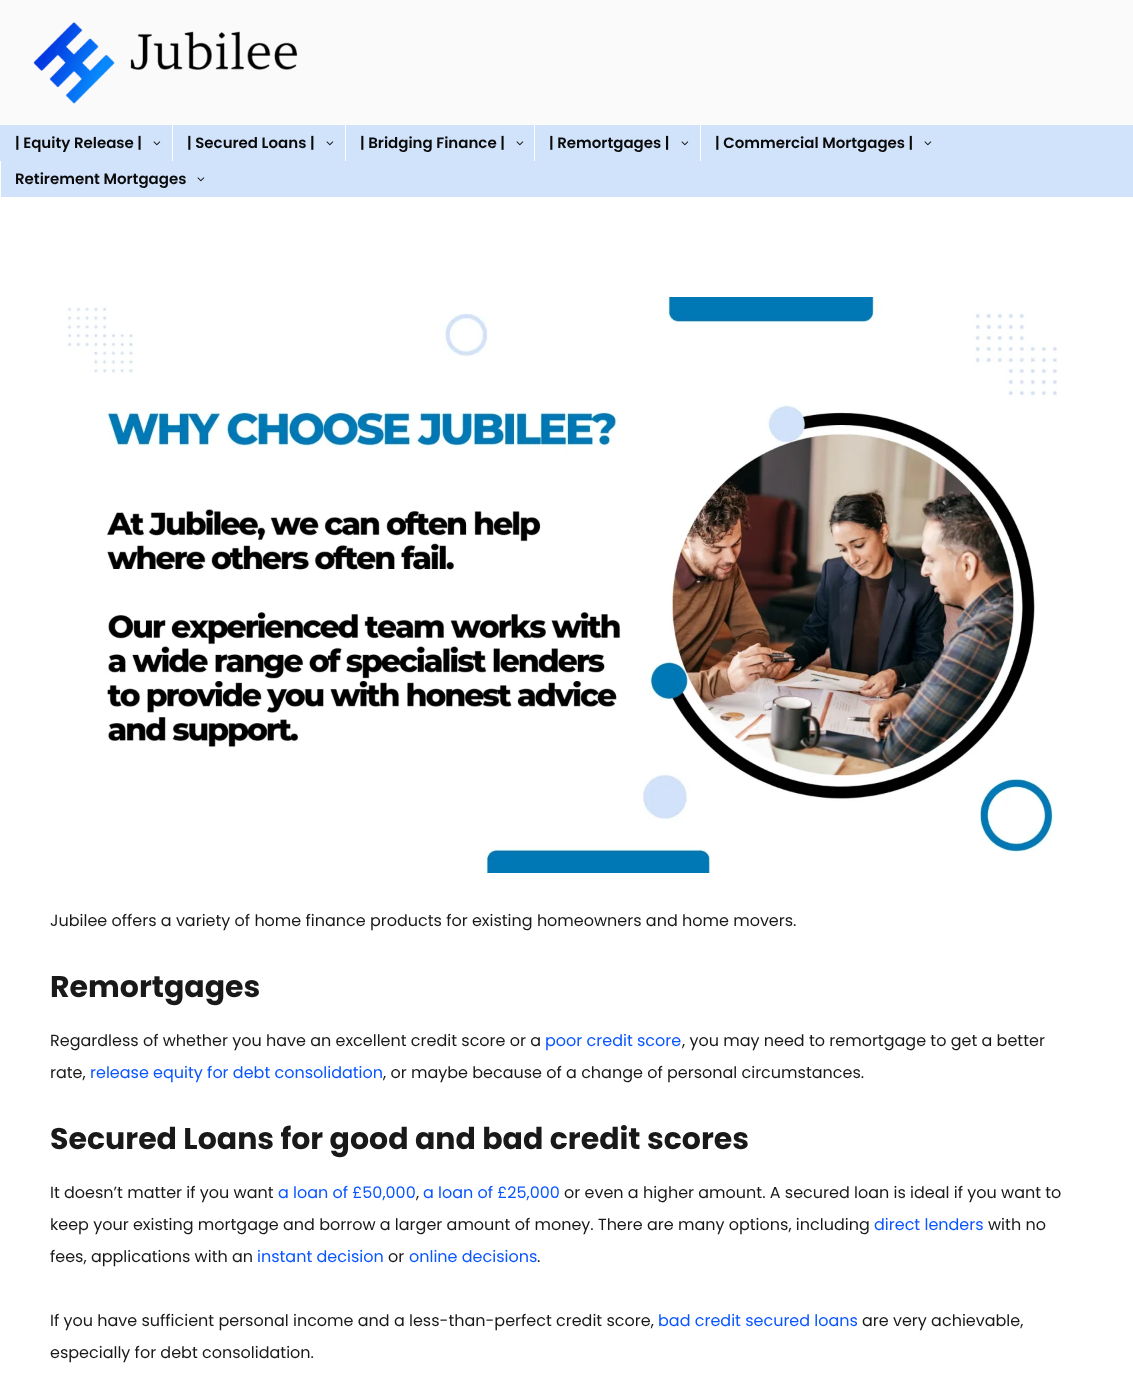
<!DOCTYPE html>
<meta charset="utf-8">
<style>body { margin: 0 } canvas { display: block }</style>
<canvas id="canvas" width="1133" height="1387"></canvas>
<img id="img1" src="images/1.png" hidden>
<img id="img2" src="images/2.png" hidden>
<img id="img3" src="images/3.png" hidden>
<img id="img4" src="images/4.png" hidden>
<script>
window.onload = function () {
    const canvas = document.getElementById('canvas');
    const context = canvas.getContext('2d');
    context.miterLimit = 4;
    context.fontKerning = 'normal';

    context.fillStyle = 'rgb(255, 255, 255)';
    context.fillRect(0, 0, 1133, 1387);
    context.fillStyle = 'rgb(250, 250, 250)';
    context.fillRect(0, 0, 1133, 125);
    context.drawImage(document.getElementById('img1'), 33, 22, 265, 82);
    context.fillStyle = 'rgb(209, 226, 251)';
    context.fillRect(0, 125, 1133, 72);
    context.drawImage(document.getElementById('img2'), 153, 141, 8, 5);
    context.fillStyle = 'rgb(255, 255, 255)';
    context.fillRect(172, 125, 1, 36);
    context.drawImage(document.getElementById('img2'), 326, 141, 8, 5);
    context.fillRect(345, 125, 1, 36);
    context.drawImage(document.getElementById('img2'), 516, 141, 8, 5);
    context.fillRect(534, 125, 1, 36);
    context.drawImage(document.getElementById('img2'), 681, 141, 8, 5);
    context.fillRect(700, 125, 1, 36);
    context.drawImage(document.getElementById('img2'), 924, 141, 8, 5);
    context.fillRect(0, 161, 1, 36);
    context.drawImage(document.getElementById('img3'), 197, 177, 8, 5);
    context.drawImage(document.getElementById('img4'), 66, 297, 992, 576);
    context.font = '600 15px Poppins';
    context.fillStyle = 'rgb(10, 10, 10)';
    context.fillText('| Equity Release |', 15, 148);
    context.fillText('| Secured Loans |', 187, 148);
    context.fillText('| Bridging Finance |', 360, 148);
    context.fillText('| Remortgages |', 549, 148);
    context.fillText('| Commercial Mortgages |', 715, 148);
    context.fillText('Retirement Mortgages', 15, 184);
    context.font = '16px Poppins';
    context.fillStyle = 'rgb(25, 25, 25)';
    context.fillText('Jubilee offers a variety of home finance products for existing homeowners and home movers.', 50, 926);
    context.font = 'bold 30px Poppins';
    context.fillText('Remortgages', 50, 997);
    context.font = '16px Poppins';
    context.fillText('Regardless of whether you have an excellent credit score or a', 50, 1046);
    context.fillStyle = 'rgb(9, 85, 255)';
    context.fillText('poor credit score', 545, 1046);
    context.fillStyle = 'rgb(25, 25, 25)';
    context.fillText(', you may need to remortgage to get a better', 682, 1046);
    context.fillText('rate,', 50, 1078);
    context.fillStyle = 'rgb(9, 85, 255)';
    context.fillText('release equity for debt consolidation', 90, 1078);
    context.fillStyle = 'rgb(25, 25, 25)';
    context.fillText(', or maybe because of a change of personal circumstances.', 383, 1078);
    context.font = 'bold 30px Poppins';
    context.fillText('Secured Loans for good and bad credit scores', 50, 1149);
    context.font = '16px Poppins';
    context.fillText('It doesn’t matter if you want', 50, 1198);
    context.fillStyle = 'rgb(9, 85, 255)';
    context.fillText('a loan of £50,000', 278, 1198);
    context.fillStyle = 'rgb(25, 25, 25)';
    context.fillText(',', 416, 1198);
    context.fillStyle = 'rgb(9, 85, 255)';
    context.fillText('a loan of £25,000', 423, 1198);
    context.fillStyle = 'rgb(25, 25, 25)';
    context.fillText('or even a higher amount. A secured loan is ideal if you want to', 564, 1198);
    context.fillText('keep your existing mortgage and borrow a larger amount of money. There are many options, including', 50, 1230);
    context.fillStyle = 'rgb(9, 85, 255)';
    context.fillText('direct lenders', 874, 1230);
    context.fillStyle = 'rgb(25, 25, 25)';
    context.fillText('with no', 988, 1230);
    context.fillText('fees, applications with an', 50, 1262);
    context.fillStyle = 'rgb(9, 85, 255)';
    context.fillText('instant decision', 257, 1262);
    context.fillStyle = 'rgb(25, 25, 25)';
    context.fillText('or', 388, 1262);
    context.fillStyle = 'rgb(9, 85, 255)';
    context.fillText('online decisions', 409, 1262);
    context.fillStyle = 'rgb(25, 25, 25)';
    context.fillText('.', 537, 1262);
    context.fillText('If you have sufficient personal income and a less-than-perfect credit score,', 50, 1326);
    context.fillStyle = 'rgb(9, 85, 255)';
    context.fillText('bad credit secured loans', 658, 1326);
    context.fillStyle = 'rgb(25, 25, 25)';
    context.fillText('are very achievable,', 862, 1326);
    context.fillText('especially for debt consolidation.', 50, 1358);
};
</script>
